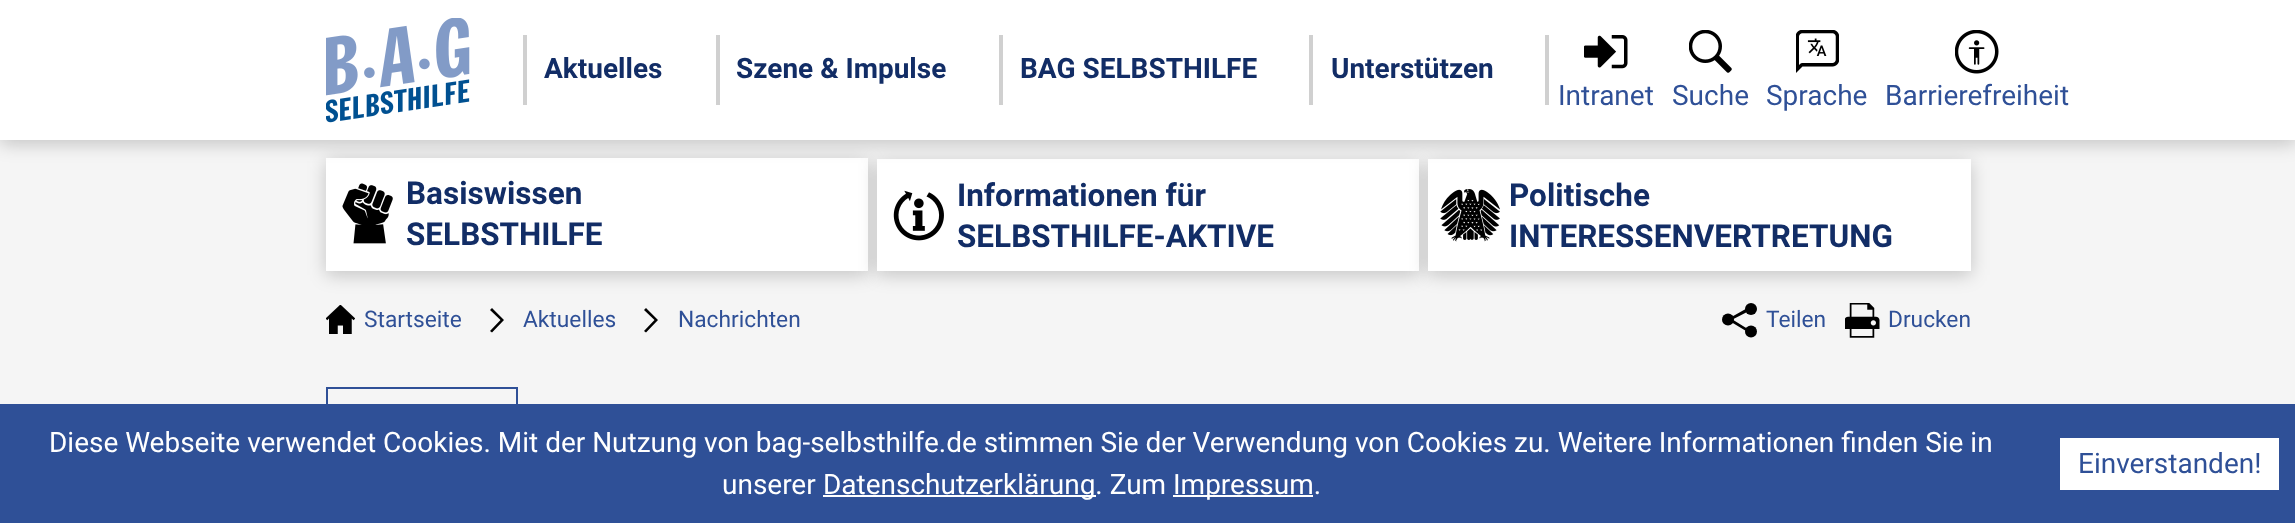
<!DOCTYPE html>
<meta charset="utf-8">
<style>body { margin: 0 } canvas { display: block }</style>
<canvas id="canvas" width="2295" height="523"></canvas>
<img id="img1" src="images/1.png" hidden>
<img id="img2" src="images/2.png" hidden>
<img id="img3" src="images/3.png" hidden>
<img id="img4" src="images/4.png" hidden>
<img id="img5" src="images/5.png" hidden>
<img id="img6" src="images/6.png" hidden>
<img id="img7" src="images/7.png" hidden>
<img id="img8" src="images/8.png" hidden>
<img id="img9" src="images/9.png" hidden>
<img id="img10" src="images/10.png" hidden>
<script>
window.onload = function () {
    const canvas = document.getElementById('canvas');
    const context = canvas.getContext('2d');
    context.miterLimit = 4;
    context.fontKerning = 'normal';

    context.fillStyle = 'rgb(245, 245, 245)';
    context.fillRect(0, 0, 2295, 523);
    context.fillStyle = 'rgba(0, 0, 0, 0.2)';
    context.filter = 'blur(9px)';
    context.beginPath();
    context.rect(326, 161, 542, 114);
    context.fill();
    context.filter = 'none';
    context.fillStyle = 'rgb(255, 255, 255)';
    context.fillRect(326, 158, 542, 113);
    context.fillStyle = 'rgba(0, 0, 0, 0.2)';
    context.filter = 'blur(9px)';
    context.beginPath();
    context.rect(877, 163, 542, 112);
    context.fill();
    context.filter = 'none';
    context.fillStyle = 'rgb(255, 255, 255)';
    context.fillRect(877, 159, 542, 112);
    context.fillStyle = 'rgba(0, 0, 0, 0.2)';
    context.filter = 'blur(9px)';
    context.beginPath();
    context.rect(1428, 163, 543, 112);
    context.fill();
    context.filter = 'none';
    context.fillStyle = 'rgb(255, 255, 255)';
    context.fillRect(1428, 159, 543, 112);
    context.fillStyle = 'rgba(0, 0, 0, 0.2)';
    context.filter = 'blur(9px)';
    context.beginPath();
    context.rect(0, 4, 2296, 140);
    context.fill();
    context.filter = 'none';
    context.fillStyle = 'rgb(255, 255, 255)';
    context.fillRect(0, 0, 2295, 140);
    context.drawImage(document.getElementById('img1'), 326, 18, 144, 105);
    context.fillStyle = 'rgb(208, 208, 208)';
    context.fillRect(716, 35, 4, 70);
    context.fillRect(523, 35, 4, 70);
    context.fillRect(999, 35, 4, 70);
    context.fillRect(1309, 35, 4, 70);
    context.fillRect(1545, 35, 4, 70);
    context.drawImage(document.getElementById('img2'), 1584, 35, 44, 34);
    context.drawImage(document.getElementById('img3'), 1689, 30, 43, 43);
    context.drawImage(document.getElementById('img4'), 1796, 30, 43, 43);
    context.drawImage(document.getElementById('img5'), 1955, 30, 44, 44);
    context.drawImage(document.getElementById('img6'), 342, 183, 51, 61);
    context.drawImage(document.getElementById('img7'), 893, 190, 51, 51);
    context.drawImage(document.getElementById('img8'), 1440, 189, 60, 53);
    context.drawImage(document.getElementById('img9'), 326, 305, 29, 29);
    context.fillStyle = 'rgb(0, 0, 0)';
    context.beginPath();
    context.moveTo(490, 310);
    context.lineTo(500.5, 320);
    context.lineTo(490, 331);
    context.lineTo(492, 332.5);
    context.lineTo(504, 320);
    context.lineTo(492, 308);
    context.closePath();
    context.fill();
    context.beginPath();
    context.moveTo(644, 310);
    context.lineTo(654.5, 320);
    context.lineTo(644, 331);
    context.lineTo(646, 332.5);
    context.lineTo(658, 320);
    context.lineTo(646, 308);
    context.closePath();
    context.fill();
    context.beginPath();
    context.arc(1751, 309, 6, 0, 2 * Math.PI);
    context.fill();
    context.beginPath();
    context.arc(1728, 319.5, 6, 0, 2 * Math.PI);
    context.fill();
    context.beginPath();
    context.arc(1751, 331.5, 6, 0, 2 * Math.PI);
    context.fill();
    context.beginPath();
    context.moveTo(1751, 306);
    context.lineTo(1751, 310);
    context.lineTo(1732.5, 319.5);
    context.lineTo(1751, 331);
    context.lineTo(1751, 334);
    context.lineTo(1727, 319.5);
    context.closePath();
    context.fill();
    context.drawImage(document.getElementById('img10'), 1845, 303, 35, 35);
    context.strokeStyle = 'rgb(47, 80, 151)';
    context.lineWidth = 2;
    context.strokeRect(327, 388, 190, 35);
    context.fillStyle = 'rgb(47, 80, 151)';
    context.fillRect(0, 404, 2295, 119);
    context.fillStyle = 'rgb(255, 255, 255)';
    context.fillRect(823, 495, 273, 2);
    context.fillRect(1173, 495, 140, 2);
    context.fillRect(2060, 438, 219, 52);
    context.font = 'bold 28px Roboto';
    context.fillStyle = 'rgb(18, 45, 102)';
    context.fillText('Aktuelles', 544, 78);
    context.fillText('Szene & Impulse', 736, 78);
    context.fillText('BAG SELBSTHILFE', 1020, 78);
    context.fillText('Unterstützen', 1331, 78);
    context.font = '28px Roboto';
    context.fillStyle = 'rgb(47, 80, 151)';
    context.fillText('Intranet', 1558, 105);
    context.fillText('Suche', 1672, 105);
    context.fillText('Sprache', 1766, 105);
    context.fillText('Barrierefreiheit', 1885, 105);
    context.font = 'bold 31.5px Roboto';
    context.fillStyle = 'rgb(18, 45, 102)';
    context.fillText('Basiswissen', 406, 204);
    context.fillText('SELBSTHILFE', 406, 245);
    context.fillText('Informationen für', 957, 206);
    context.fillText('SELBSTHILFE-AKTIVE', 957, 247);
    context.fillText('Politische', 1509, 206);
    context.fillText('INTERESSENVERTRETUNG', 1509, 247);
    context.font = '22.75px Roboto';
    context.fillStyle = 'rgb(47, 80, 151)';
    context.fillText('Startseite', 364, 327);
    context.fillText('Aktuelles', 523, 327);
    context.fillText('Nachrichten', 678, 327);
    context.fillText('Teilen', 1766, 327);
    context.fillText('Drucken', 1888, 327);
    context.font = '28px Roboto';
    context.fillStyle = 'rgb(255, 255, 255)';
    context.fillText('Diese Webseite verwendet Cookies. Mit der Nutzung von bag-selbsthilfe.de stimmen Sie der Verwendung von Cookies zu. Weitere Informationen finden Sie in', 49, 452);
    context.fillText('unserer', 722, 494);
    context.fillText('Datenschutzerklärung. Zum', 823, 494);
    context.fillText('Impressum.', 1173, 494);
    context.fillStyle = 'rgb(47, 80, 151)';
    context.fillText('Einverstanden!', 2078, 473);
};
</script>
